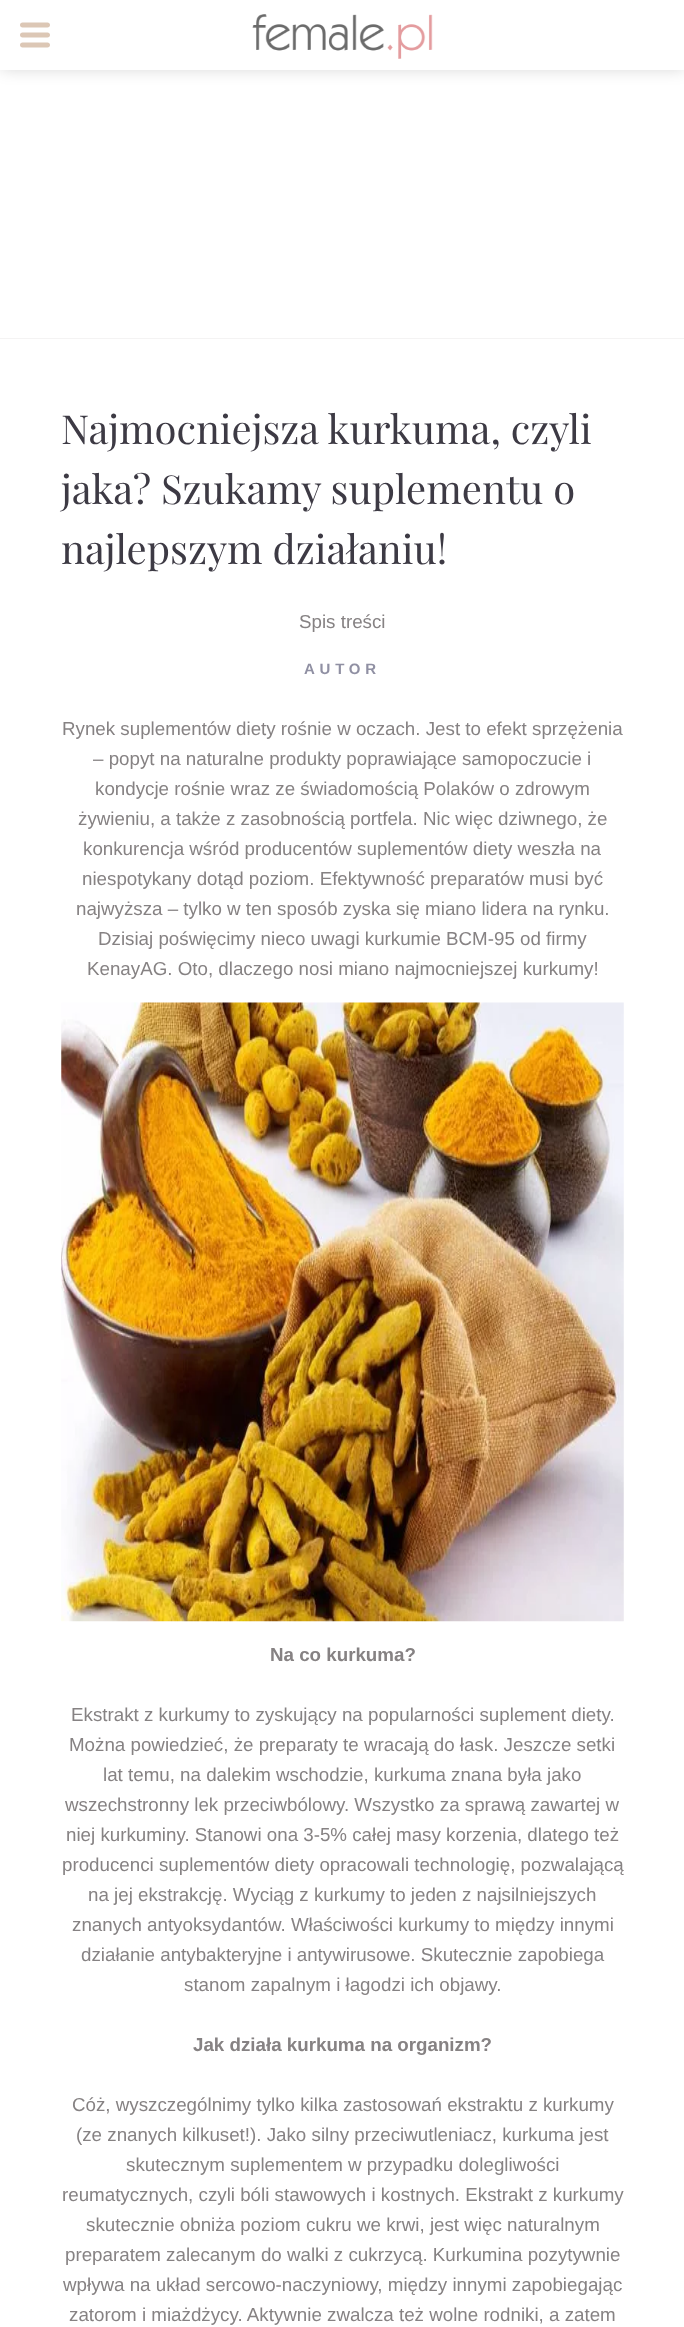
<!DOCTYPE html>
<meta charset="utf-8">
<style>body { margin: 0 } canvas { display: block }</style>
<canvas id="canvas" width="684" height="2327"></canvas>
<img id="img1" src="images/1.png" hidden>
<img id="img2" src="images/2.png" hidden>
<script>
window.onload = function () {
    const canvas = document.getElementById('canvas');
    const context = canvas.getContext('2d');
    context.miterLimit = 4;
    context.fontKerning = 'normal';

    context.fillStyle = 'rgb(255, 255, 255)';
    context.fillRect(0, 0, 684, 2327);
    context.fillStyle = 'rgba(0, 0, 0, 0.17)';
    context.filter = 'blur(8px)';
    context.beginPath();
    context.rect(1, 1, 683, 68);
    context.fill();
    context.filter = 'none';
    context.fillStyle = 'rgb(255, 255, 255)';
    context.fillRect(0, 0, 684, 70);
    context.fillStyle = 'rgb(220, 199, 181)';
    context.beginPath();
    context.moveTo(47.5, 37.5);
    context.lineTo(22.5, 37.5);
    context.bezierCurveTo(21, 37.5, 20, 36.5, 20, 35);
    context.bezierCurveTo(20, 33.5, 21, 32.5, 22.5, 32.5);
    context.lineTo(47.5, 32.5);
    context.bezierCurveTo(49, 32.5, 50, 33.5, 50, 35);
    context.bezierCurveTo(50, 36.5, 49, 37.5, 47.5, 37.5);
    context.closePath();
    context.moveTo(47.5, 47.5);
    context.lineTo(22.5, 47.5);
    context.bezierCurveTo(21, 47.5, 20, 46.5, 20, 45);
    context.bezierCurveTo(20, 43.5, 21, 42.5, 22.5, 42.5);
    context.lineTo(47.5, 42.5);
    context.bezierCurveTo(49, 42.5, 50, 43.5, 50, 45);
    context.bezierCurveTo(50, 46.5, 49, 47.5, 47.5, 47.5);
    context.closePath();
    context.moveTo(47.5, 27.5);
    context.lineTo(22.5, 27.5);
    context.bezierCurveTo(21, 27.5, 20, 26.5, 20, 25);
    context.bezierCurveTo(20, 23.5, 21, 22.5, 22.5, 22.5);
    context.lineTo(47.5, 22.5);
    context.bezierCurveTo(49, 22.5, 50, 23.5, 50, 25);
    context.bezierCurveTo(50, 26.5, 49, 27.5, 47.5, 27.5);
    context.closePath();
    context.fill();
    context.drawImage(document.getElementById('img1'), 252, 14, 181, 45);
    context.fillStyle = 'rgb(244, 243, 243)';
    context.fillRect(0, 338, 684, 1);
    context.drawImage(document.getElementById('img2'), 61, 1002, 563, 620);
    context.font = '40px Playfair Display';
    context.fillStyle = 'rgb(61, 58, 68)';
    context.fillText('Najmocniejsza kurkuma, czyli', 61, 444);
    context.fillText('jaka? Szukamy suplementu o', 61, 504);
    context.fillText('najlepszym działaniu!', 61, 564);
    context.font = '18.75px Liberation Sans';
    context.fillStyle = 'rgb(134, 130, 131)';
    context.fillText('Spis treści', 299, 628);
    context.letterSpacing = '4.75px';
    context.font = 'bold 15px Liberation Sans';
    context.fillStyle = 'rgb(144, 144, 163)';
    context.fillText('AUTOR', 304, 674);
    context.letterSpacing = '0px';
    context.font = '18.75px Liberation Sans';
    context.fillStyle = 'rgb(134, 130, 131)';
    context.fillText('Rynek suplementów diety rośnie w oczach. Jest to efekt sprzężenia', 62, 735);
    context.fillText('– popyt na naturalne produkty poprawiające samopoczucie i', 93, 765);
    context.fillText('kondycje rośnie wraz ze świadomością Polaków o zdrowym', 95, 795);
    context.fillText('żywieniu, a także z zasobnością portfela. Nic więc dziwnego, że', 78, 825);
    context.fillText('konkurencja wśród producentów suplementów diety weszła na', 83, 855);
    context.fillText('niespotykany dotąd poziom. Efektywność preparatów musi być', 82, 885);
    context.fillText('najwyższa – tylko w ten sposób zyska się miano lidera na rynku.', 76, 915);
    context.fillText('Dzisiaj poświęcimy nieco uwagi kurkumie BCM-95 od firmy', 98, 945);
    context.fillText('KenayAG. Oto, dlaczego nosi miano najmocniejszej kurkumy!', 87, 975);
    context.font = 'bold 18.75px Liberation Sans';
    context.fillText('Na co kurkuma?', 270, 1661);
    context.font = '18.75px Liberation Sans';
    context.fillText('Ekstrakt z kurkumy to zyskujący na popularności suplement diety.', 71, 1721);
    context.fillText('Można powiedzieć, że preparaty te wracają do łask. Jeszcze setki', 69, 1751);
    context.fillText('lat temu, na dalekim wschodzie, kurkuma znana była jako', 103, 1781);
    context.fillText('wszechstronny lek przeciwbólowy. Wszystko za sprawą zawartej w', 65, 1811);
    context.fillText('niej kurkuminy. Stanowi ona 3-5% całej masy korzenia, dlatego też', 66, 1841);
    context.fillText('producenci suplementów diety opracowali technologię, pozwalającą', 62, 1871);
    context.fillText('na jej ekstrakcję. Wyciąg z kurkumy to jeden z najsilniejszych', 88, 1901);
    context.fillText('znanych antyoksydantów. Właściwości kurkumy to między innymi', 72, 1931);
    context.fillText('działanie antybakteryjne i antywirusowe. Skutecznie zapobiega', 81, 1961);
    context.fillText('stanom zapalnym i łagodzi ich objawy.', 184, 1991);
    context.font = 'bold 18.75px Liberation Sans';
    context.fillText('Jak działa kurkuma na organizm?', 193, 2051);
    context.font = '18.75px Liberation Sans';
    context.fillText('Cóż, wyszczególnimy tylko kilka zastosowań ekstraktu z kurkumy', 72, 2111);
    context.fillText('(ze znanych kilkuset!). Jako silny przeciwutleniacz, kurkuma jest', 76, 2141);
    context.fillText('skutecznym suplementem w przypadku dolegliwości', 126, 2171);
    context.fillText('reumatycznych, czyli bóli stawowych i kostnych. Ekstrakt z kurkumy', 62, 2201);
    context.fillText('skutecznie obniża poziom cukru we krwi, jest więc naturalnym', 86, 2231);
    context.fillText('preparatem zalecanym do walki z cukrzycą. Kurkumina pozytywnie', 65, 2261);
    context.fillText('wpływa na układ sercowo-naczyniowy, między innymi zapobiegając', 63, 2291);
    context.fillText('zatorom i miażdżycy. Aktywnie zwalcza też wolne rodniki, a zatem', 69, 2321);
};
</script>
